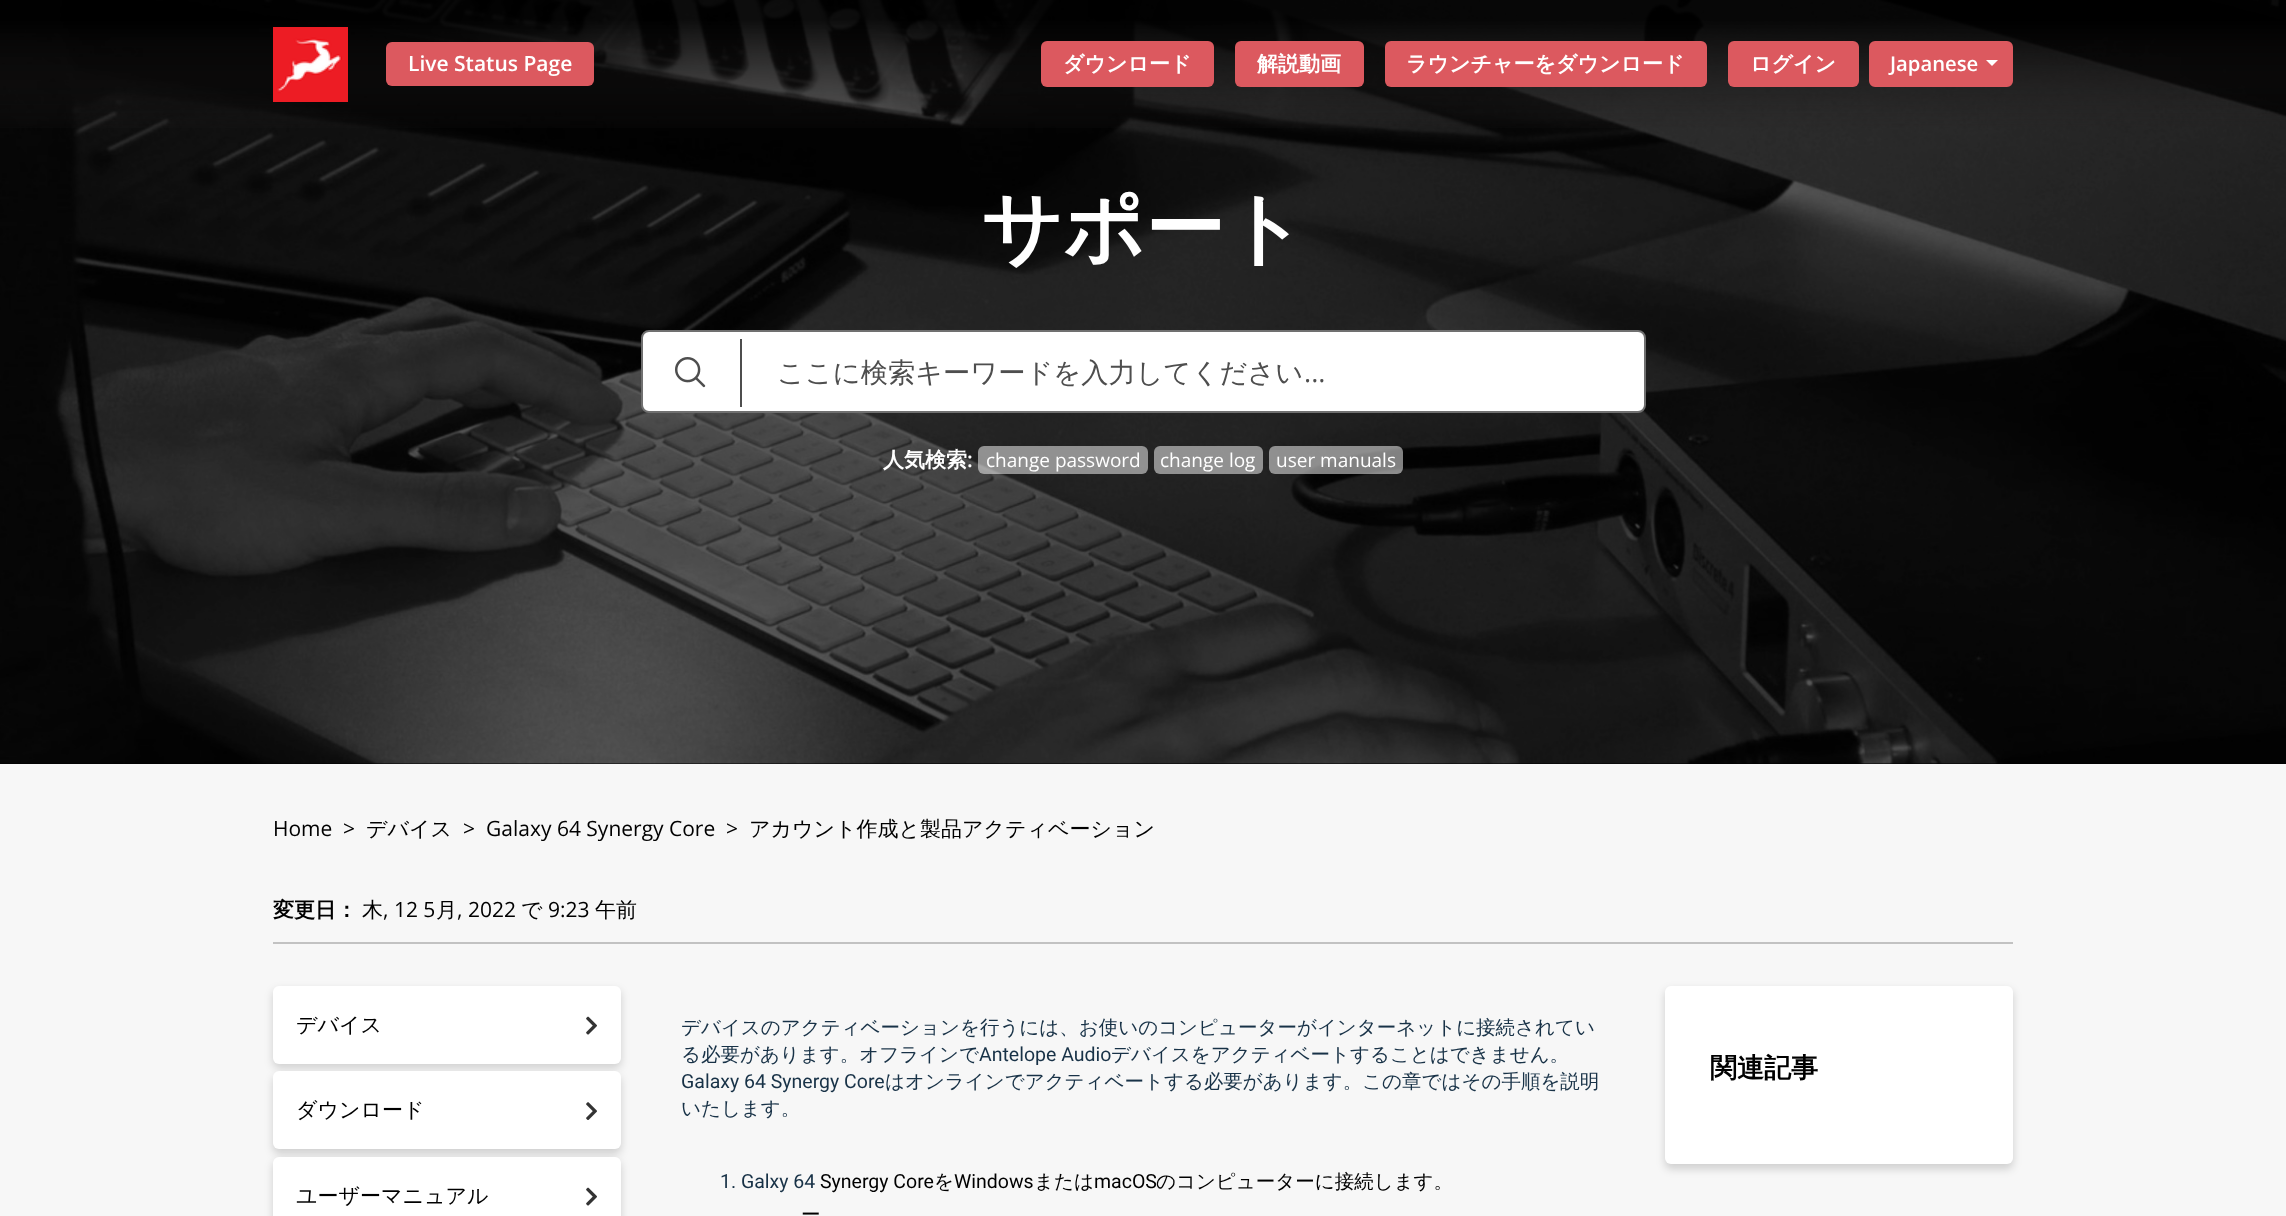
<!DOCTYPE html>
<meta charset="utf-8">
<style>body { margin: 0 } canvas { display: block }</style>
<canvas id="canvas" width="2286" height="1216"></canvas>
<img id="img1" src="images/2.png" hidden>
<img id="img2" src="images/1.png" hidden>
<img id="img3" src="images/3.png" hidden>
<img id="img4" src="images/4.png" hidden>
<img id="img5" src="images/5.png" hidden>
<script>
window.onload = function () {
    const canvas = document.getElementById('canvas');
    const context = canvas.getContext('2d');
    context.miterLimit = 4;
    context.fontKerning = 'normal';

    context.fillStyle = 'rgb(0, 0, 0)';
    context.fillRect(0, 0, 2286, 1216);
    context.drawImage(document.getElementById('img1'), 0, 0, 2286, 764);
    context.drawImage(document.getElementById('img2'), 273, 27, 75, 75);
    context.fillStyle = 'rgb(220, 89, 95)';
    context.beginPath();
    context.roundRect(386, 42, 208, 44, 6);
    context.fill();
    context.beginPath();
    context.roundRect(1041, 41, 173, 46, 6);
    context.fill();
    context.beginPath();
    context.roundRect(1235, 41, 129, 46, 6);
    context.fill();
    context.beginPath();
    context.roundRect(1385, 41, 322, 46, 6);
    context.fill();
    context.beginPath();
    context.roundRect(1728, 41, 131, 46, 6);
    context.fill();
    context.beginPath();
    context.roundRect(1870, 42, 142, 44, 5);
    context.fill();
    context.strokeStyle = 'rgb(220, 89, 95)';
    context.lineWidth = 2;
    context.stroke();
    context.fillStyle = 'rgb(255, 255, 255)';
    context.beginPath();
    context.moveTo(1986, 60);
    context.lineTo(1998, 60);
    context.lineTo(1992, 66);
    context.closePath();
    context.fill();
    context.beginPath();
    context.roundRect(642, 331, 1003, 81, 7);
    context.fill();
    context.strokeStyle = 'rgb(112, 112, 112)';
    context.stroke();
    context.fillStyle = 'rgb(78, 78, 78)';
    context.fillRect(740, 339, 2, 68);
    context.drawImage(document.getElementById('img3'), 675, 357, 31, 31);
    context.fillStyle = 'rgba(255, 255, 255, 0.5)';
    context.beginPath();
    context.roundRect(978, 446, 170, 28, 6);
    context.fill();
    context.beginPath();
    context.roundRect(1154, 446, 109, 28, 6);
    context.fill();
    context.beginPath();
    context.roundRect(1269, 446, 134, 28, 6);
    context.fill();
    context.fillStyle = 'rgb(247, 247, 247)';
    context.fillRect(0, 764, 2286, 452);
    context.fillStyle = 'rgb(194, 194, 194)';
    context.fillRect(273, 942, 1740, 2);
    context.fillStyle = 'rgba(0, 0, 0, 0.16)';
    context.filter = 'blur(4.5px)';
    context.beginPath();
    context.roundRect(273, 990, 348, 78, 6);
    context.fill();
    context.filter = 'none';
    context.fillStyle = 'rgb(255, 255, 255)';
    context.beginPath();
    context.roundRect(273, 986, 348, 78, 6);
    context.fill();
    context.drawImage(document.getElementById('img4'), 586, 1016, 11, 19);
    context.fillStyle = 'rgba(0, 0, 0, 0.16)';
    context.filter = 'blur(4.5px)';
    context.beginPath();
    context.roundRect(273, 1076, 348, 78, 6);
    context.fill();
    context.filter = 'none';
    context.fillStyle = 'rgb(255, 255, 255)';
    context.beginPath();
    context.roundRect(273, 1071, 348, 78, 6);
    context.fill();
    context.drawImage(document.getElementById('img5'), 586, 1102, 11, 18);
    context.fillStyle = 'rgba(0, 0, 0, 0.16)';
    context.filter = 'blur(4.5px)';
    context.beginPath();
    context.roundRect(273, 1161, 348, 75, 6);
    context.fill();
    context.filter = 'none';
    context.fillStyle = 'rgb(255, 255, 255)';
    context.beginPath();
    context.roundRect(273, 1157, 348, 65, 6);
    context.fill();
    context.drawImage(document.getElementById('img4'), 586, 1187, 11, 19);
    context.fillStyle = 'rgba(0, 0, 0, 0.16)';
    context.filter = 'blur(4.5px)';
    context.beginPath();
    context.roundRect(1665, 990, 348, 179, 6);
    context.fill();
    context.filter = 'none';
    context.fillStyle = 'rgb(255, 255, 255)';
    context.beginPath();
    context.roundRect(1665, 986, 348, 178, 6);
    context.fill();
    context.font = '600 21px Open Sans';
    context.fillText('Live Status Page', 408, 71);
    context.font = 'bold 21px WenQuanYi Zen Hei';
    context.fillText('ダウンロード', 1063, 71);
    context.fillText('解説動画', 1257, 71);
    context.fillText('ラウンチャーをダウンロード', 1406, 71);
    context.fillText('ログイン', 1750, 71);
    context.font = '600 20.25px Open Sans';
    context.fillText('Japanese', 1890, 71);
    context.font = 'bold 80px WenQuanYi Zen Hei';
    context.fillText('サポート', 981, 256);
    context.font = '500 27.25px WenQuanYi Zen Hei';
    context.fillStyle = 'rgb(78, 78, 78)';
    context.fillText('ここに検索キーワードを入力してください', 777, 382);
    context.font = '27.25px Open Sans';
    context.fillText('...', 1304, 382);
    context.font = 'bold 21px WenQuanYi Zen Hei';
    context.fillStyle = 'rgb(255, 255, 255)';
    context.fillText('人気検索', 883, 467);
    context.font = '600 21px Open Sans';
    context.fillText(':', 967, 467);
    context.font = '19px Open Sans';
    context.fillText('change password', 986, 467);
    context.fillText('change log', 1160, 467);
    context.fillText('user manuals', 1276, 467);
    context.font = '21px Open Sans';
    context.fillStyle = 'rgb(0, 0, 0)';
    context.fillText('Home', 273, 836);
    context.fillText('>', 343, 836);
    context.font = '500 21px WenQuanYi Zen Hei';
    context.fillText('デバイス', 366, 836);
    context.font = '21px Open Sans';
    context.fillText('>', 463, 836);
    context.fillText('Galaxy 64 Synergy Core', 486, 836);
    context.fillText('>', 726, 836);
    context.font = '500 21px WenQuanYi Zen Hei';
    context.fillText('アカウント作成と製品アクティベーション', 749, 836);
    context.font = 'bold 21px WenQuanYi Zen Hei';
    context.fillText('変更日：', 273, 917);
    context.font = '500 21px WenQuanYi Zen Hei';
    context.fillText('木', 362, 917);
    context.font = '21px Open Sans';
    context.fillText(', 12 5', 383, 917);
    context.font = '500 21px WenQuanYi Zen Hei';
    context.fillText('月', 436, 917);
    context.font = '21px Open Sans';
    context.fillText(', 2022', 457, 917);
    context.font = '500 21px WenQuanYi Zen Hei';
    context.fillText('で', 521, 917);
    context.font = '21px Open Sans';
    context.fillText('9:23', 548, 917);
    context.font = '500 21px WenQuanYi Zen Hei';
    context.fillText('午前', 595, 917);
    context.fillText('デバイス', 296, 1032);
    context.fillText('ダウンロード', 296, 1117);
    context.fillText('ユーザーマニュアル', 296, 1203);
    context.font = '500 19.5px WenQuanYi Zen Hei';
    context.fillStyle = 'rgb(24, 50, 71)';
    context.fillText('デバイスのアクティベーションを行うには、お使いのコンピューターがインターネットに接続されてい', 681, 1034);
    context.fillText('る必要があります。オフラインで', 681, 1061);
    context.font = '19.5px Roboto';
    context.fillText('Antelope Audio', 979, 1061);
    context.font = '500 19.5px WenQuanYi Zen Hei';
    context.fillText('デバイスをアクティベートすることはできません。', 1111, 1061);
    context.font = '19.5px Roboto';
    context.fillText('Galaxy 64 Synergy Core', 681, 1088);
    context.font = '500 19.5px WenQuanYi Zen Hei';
    context.fillText('はオンラインでアクティベートする必要があります。この章ではその手順を説明', 885, 1088);
    context.fillText('いたします。', 681, 1115);
    context.font = '19.5px Roboto';
    context.fillText('1. Galxy 64', 720, 1188);
    context.fillStyle = 'rgb(0, 0, 0)';
    context.fillText('Synergy Core', 820, 1188);
    context.font = '500 19.5px WenQuanYi Zen Hei';
    context.fillText('を', 934, 1188);
    context.font = '19.5px Roboto';
    context.fillText('Windows', 954, 1188);
    context.font = '500 19.5px WenQuanYi Zen Hei';
    context.fillText('または', 1034, 1188);
    context.font = '19.5px Roboto';
    context.fillText('macOS', 1094, 1188);
    context.font = '500 19.5px WenQuanYi Zen Hei';
    context.fillText('のコンピューターに接続します。', 1156, 1188);
    context.fillText('ー', 801, 1221);
    context.font = 'bold 27px WenQuanYi Zen Hei';
    context.fillText('関連記事', 1710, 1077);
};
</script>
